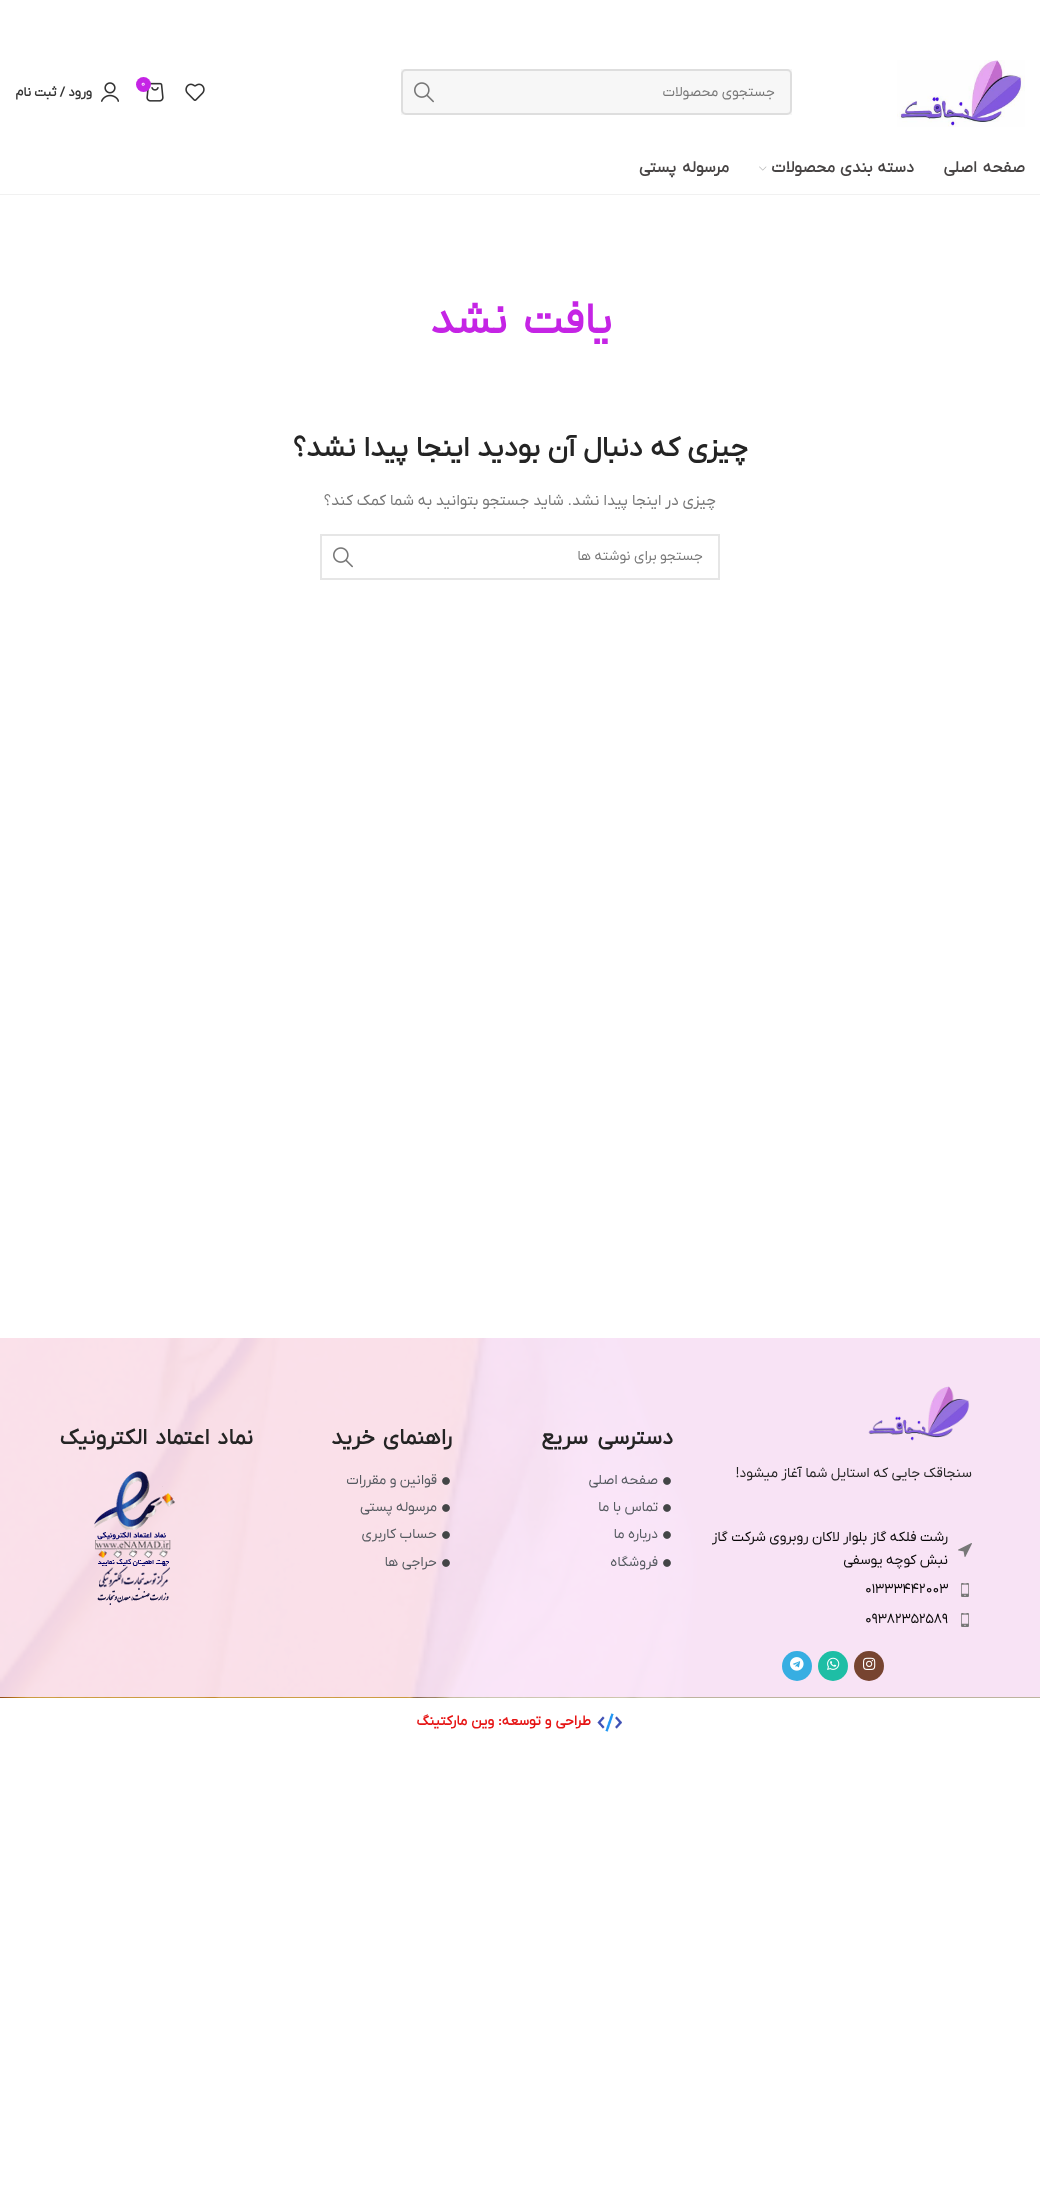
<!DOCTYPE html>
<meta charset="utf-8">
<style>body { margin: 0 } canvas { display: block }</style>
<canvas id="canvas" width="1040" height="2205"></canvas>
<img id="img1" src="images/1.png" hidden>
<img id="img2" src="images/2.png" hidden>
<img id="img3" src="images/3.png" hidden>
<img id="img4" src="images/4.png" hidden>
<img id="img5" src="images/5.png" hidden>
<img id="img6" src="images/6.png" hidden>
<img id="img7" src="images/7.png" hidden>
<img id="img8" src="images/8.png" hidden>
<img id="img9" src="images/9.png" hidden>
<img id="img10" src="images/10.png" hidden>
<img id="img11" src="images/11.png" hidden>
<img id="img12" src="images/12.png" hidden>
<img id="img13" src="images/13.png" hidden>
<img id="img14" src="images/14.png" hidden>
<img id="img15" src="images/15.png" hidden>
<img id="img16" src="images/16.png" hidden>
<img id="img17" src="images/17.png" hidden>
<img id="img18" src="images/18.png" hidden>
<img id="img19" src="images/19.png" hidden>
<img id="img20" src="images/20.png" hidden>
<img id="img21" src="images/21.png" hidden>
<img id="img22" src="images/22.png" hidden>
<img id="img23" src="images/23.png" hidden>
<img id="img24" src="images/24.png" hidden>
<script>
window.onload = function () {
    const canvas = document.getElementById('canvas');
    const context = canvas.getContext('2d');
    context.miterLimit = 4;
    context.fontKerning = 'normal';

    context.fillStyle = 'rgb(255, 255, 255)';
    context.fillRect(0, 0, 1040, 2205);
    context.drawImage(document.getElementById('img1'), 897, 60, 128, 67);
    context.fillStyle = 'rgb(247, 247, 247)';
    context.fillRect(401, 69, 391, 46);
    context.beginPath();
    context.roundRect(402, 70, 389, 44, 4);
    context.strokeStyle = 'rgb(222, 222, 222)';
    context.lineWidth = 2;
    context.stroke();
    context.drawImage(document.getElementById('img2'), 414, 82, 20, 21);
    context.drawImage(document.getElementById('img3'), 185, 83, 20, 18);
    context.drawImage(document.getElementById('img4'), 146, 82, 18, 20);
    context.fillStyle = 'rgb(197, 36, 229)';
    context.beginPath();
    context.arc(143.5, 84.5, 7.5, 0, 2 * Math.PI);
    context.fill();
    context.drawImage(document.getElementById('img5'), 101, 82, 18, 20);
    context.fillStyle = 'rgb(241, 241, 241)';
    context.fillRect(0, 194, 1040, 1);
    context.drawImage(document.getElementById('img6'), 759, 166, 8, 5);
    context.strokeStyle = 'rgb(230, 230, 230)';
    context.strokeRect(321, 535, 398, 44);
    context.drawImage(document.getElementById('img7'), 333, 547, 20, 21);
    context.drawImage(document.getElementById('img8'), 0, 1338, 1040, 360);
    context.fillStyle = 'rgba(129, 129, 129, 0.2)';
    context.fillRect(0, 1697, 1040, 1);
    context.drawImage(document.getElementById('img9'), 868, 1386, 102, 55);
    context.drawImage(document.getElementById('img10'), 958, 1543, 14, 14);
    context.drawImage(document.getElementById('img11'), 961, 1583, 8, 14);
    context.drawImage(document.getElementById('img11'), 961, 1613, 8, 14);
    context.fillStyle = 'rgb(119, 68, 48)';
    context.beginPath();
    context.arc(869, 1666, 15, 0, 2 * Math.PI);
    context.fill();
    context.drawImage(document.getElementById('img12'), 863, 1657, 13, 13);
    context.fillStyle = 'rgb(30, 190, 165)';
    context.beginPath();
    context.arc(833, 1666, 15, 0, 2 * Math.PI);
    context.fill();
    context.drawImage(document.getElementById('img13'), 827, 1657, 13, 13);
    context.fillStyle = 'rgb(55, 174, 226)';
    context.beginPath();
    context.arc(797, 1666, 15, 0, 2 * Math.PI);
    context.fill();
    context.drawImage(document.getElementById('img14'), 790, 1657, 14, 14);
    context.drawImage(document.getElementById('img15'), 663, 1477, 8, 8);
    context.drawImage(document.getElementById('img16'), 663, 1504, 8, 8);
    context.drawImage(document.getElementById('img17'), 663, 1531, 8, 8);
    context.drawImage(document.getElementById('img18'), 663, 1559, 8, 8);
    context.drawImage(document.getElementById('img19'), 442, 1477, 8, 8);
    context.drawImage(document.getElementById('img20'), 442, 1504, 8, 8);
    context.drawImage(document.getElementById('img21'), 442, 1531, 8, 8);
    context.drawImage(document.getElementById('img22'), 442, 1559, 8, 8);
    context.drawImage(document.getElementById('img23'), 94, 1471, 81, 134);
    context.drawImage(document.getElementById('img24'), 597, 1713, 25, 19);
    context.direction = 'rtl';
    context.font = '14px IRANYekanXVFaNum';
    context.fillStyle = 'rgb(119, 119, 119)';
    context.fillText('جستجوی محصولات', 775, 96);
    context.direction = 'ltr';
    context.font = '9px IRANYekanXVFaNum';
    context.fillStyle = 'rgb(255, 255, 255)';
    context.fillText('0', 141, 86);
    context.direction = 'rtl';
    context.font = 'bold 13px IRANYekanXVFaNum';
    context.fillStyle = 'rgb(51, 51, 51)';
    context.fillText('ورود / ثبت نام', 92, 96);
    context.wordSpacing = '2px';
    context.font = 'bold 16px IRANYekanXVFaNum';
    context.fillStyle = 'rgb(72, 69, 69)';
    context.fillText('صفحه اصلی', 1025, 172);
    context.wordSpacing = '1px';
    context.fillText('دسته بندی محصولات', 914, 172);
    context.wordSpacing = '2px';
    context.fillText('مرسوله پستی', 729, 172);
    context.wordSpacing = '5px';
    context.font = 'bold 43.5px IRANYekanXVFaNum';
    context.fillStyle = 'rgb(197, 36, 229)';
    context.fillText('یافت نشد', 612, 333);
    context.wordSpacing = '0.5px';
    context.font = 'bold 28px IRANYekanXVFaNum';
    context.fillStyle = 'rgb(36, 36, 36)';
    context.fillText('چیزی که دنبال آن بودید اینجا پیدا نشد؟', 748, 456);
    context.wordSpacing = '0px';
    context.font = '15.4px IRANYekanXVFaNum';
    context.fillStyle = 'rgb(119, 119, 119)';
    context.fillText('چیزی در اینجا پیدا نشد. شاید جستجو بتوانید به شما کمک کند؟', 716, 505);
    context.font = '14px IRANYekanXVFaNum';
    context.fillText('جستجو برای نوشته ها', 703, 560);
    context.fillStyle = 'rgb(36, 36, 36)';
    context.fillText('سنجاقک جایی که استایل شما آغاز میشود!', 972, 1477);
    context.fillStyle = 'rgb(7, 6, 6)';
    context.fillText('رشت فلکه گاز بلوار لاکان روبروی شرکت گاز', 948, 1541);
    context.fillText('نبش کوچه یوسفی', 948, 1564);
    context.direction = 'ltr';
    context.fillText('01333442003', 865, 1593);
    context.fillText('09382352589', 865, 1623);
    context.wordSpacing = '4px';
    context.direction = 'rtl';
    context.font = 'bold 22px IRANYekanXVFaNum';
    context.fillStyle = 'rgb(36, 36, 36)';
    context.fillText('دسترسی سریع', 673, 1444);
    context.wordSpacing = '0px';
    context.font = '14px IRANYekanXVFaNum';
    context.fillStyle = 'rgb(84, 89, 95)';
    context.fillText('صفحه اصلی', 658, 1484);
    context.fillText('تماس با ما', 658, 1511);
    context.fillText('درباره ما', 658, 1538);
    context.fillText('فروشگاه', 658, 1566);
    context.wordSpacing = '2px';
    context.font = 'bold 22px IRANYekanXVFaNum';
    context.fillStyle = 'rgb(36, 36, 36)';
    context.fillText('راهنمای خرید', 452, 1444);
    context.wordSpacing = '0px';
    context.font = '14px IRANYekanXVFaNum';
    context.fillStyle = 'rgb(84, 89, 95)';
    context.fillText('قوانین و مقررات', 437, 1484);
    context.fillText('مرسوله پستی', 437, 1511);
    context.fillText('حساب کاربری', 437, 1538);
    context.fillText('حراجی ها', 437, 1566);
    context.wordSpacing = '2px';
    context.font = 'bold 22px IRANYekanXVFaNum';
    context.fillStyle = 'rgb(36, 36, 36)';
    context.fillText('نماد اعتماد الکترونیک', 253, 1444);
    context.wordSpacing = '0.5px';
    context.font = 'bold 14px IRANYekanXVFaNum';
    context.fillStyle = 'rgb(230, 21, 21)';
    context.fillText('طراحی و توسعه: وین مارکتینگ', 591, 1725);
};
</script>
